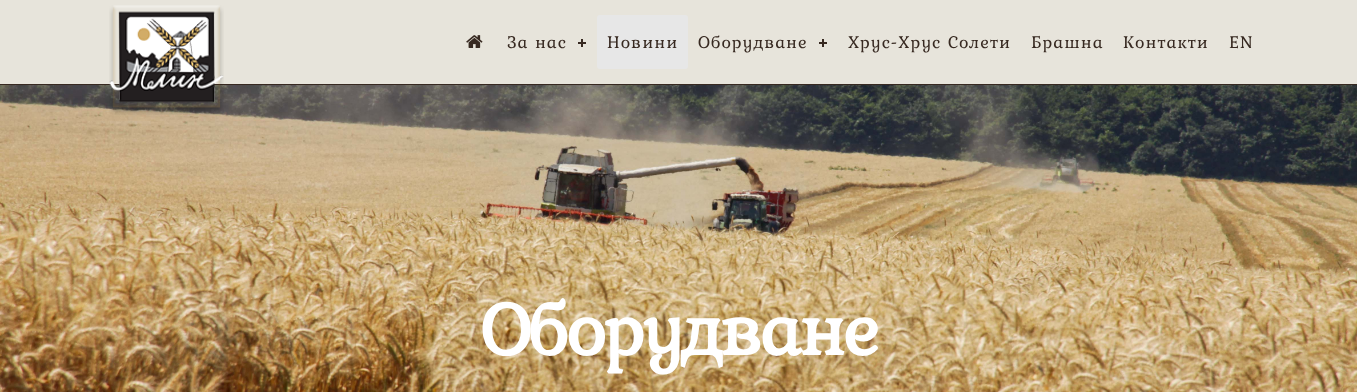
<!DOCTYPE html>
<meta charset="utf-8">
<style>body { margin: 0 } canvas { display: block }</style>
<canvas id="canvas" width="1357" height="392"></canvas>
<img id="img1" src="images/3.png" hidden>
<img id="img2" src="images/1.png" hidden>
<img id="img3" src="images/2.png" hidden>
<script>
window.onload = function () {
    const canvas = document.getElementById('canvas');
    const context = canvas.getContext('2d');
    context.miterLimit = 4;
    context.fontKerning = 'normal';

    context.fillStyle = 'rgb(255, 255, 255)';
    context.fillRect(0, 0, 1357, 392);
    context.fillStyle = 'rgb(231, 228, 219)';
    context.fillRect(0, 0, 1357, 84);
    context.fillStyle = 'rgb(55, 41, 33)';
    context.fillRect(0, 84, 1357, 1);
    context.drawImage(document.getElementById('img1'), 0, 85, 1357, 307);
    context.drawImage(document.getElementById('img2'), 109, 5, 115, 110);
    context.drawImage(document.getElementById('img3'), 466, 35, 17, 13);
    context.fillRect(581, 39, 2, 8);
    context.fillRect(578, 42, 8, 2);
    context.fillStyle = 'rgb(231, 231, 231)';
    context.beginPath();
    context.roundRect(597, 15, 91, 54, 3);
    context.fill();
    context.fillStyle = 'rgb(55, 41, 33)';
    context.fillRect(822, 39, 2, 8);
    context.fillRect(819, 42, 8, 2);
    context.letterSpacing = '1px';
    context.font = '18px Kurale';
    context.fillText('За нас', 507, 48);
    context.fillText('Новини', 607, 48);
    context.fillText('Оборудване', 698, 48);
    context.fillText('Хрус-Хрус Солети', 848, 48);
    context.fillText('Брашна', 1031, 48);
    context.fillText('Контакти', 1123, 48);
    context.fillText('EN', 1229, 48);
    context.letterSpacing = '-3px';
    context.font = 'bold 77px Kurale';
    context.fillStyle = 'rgb(255, 255, 255)';
    context.fillText('Оборудване', 480, 355);
};
</script>
